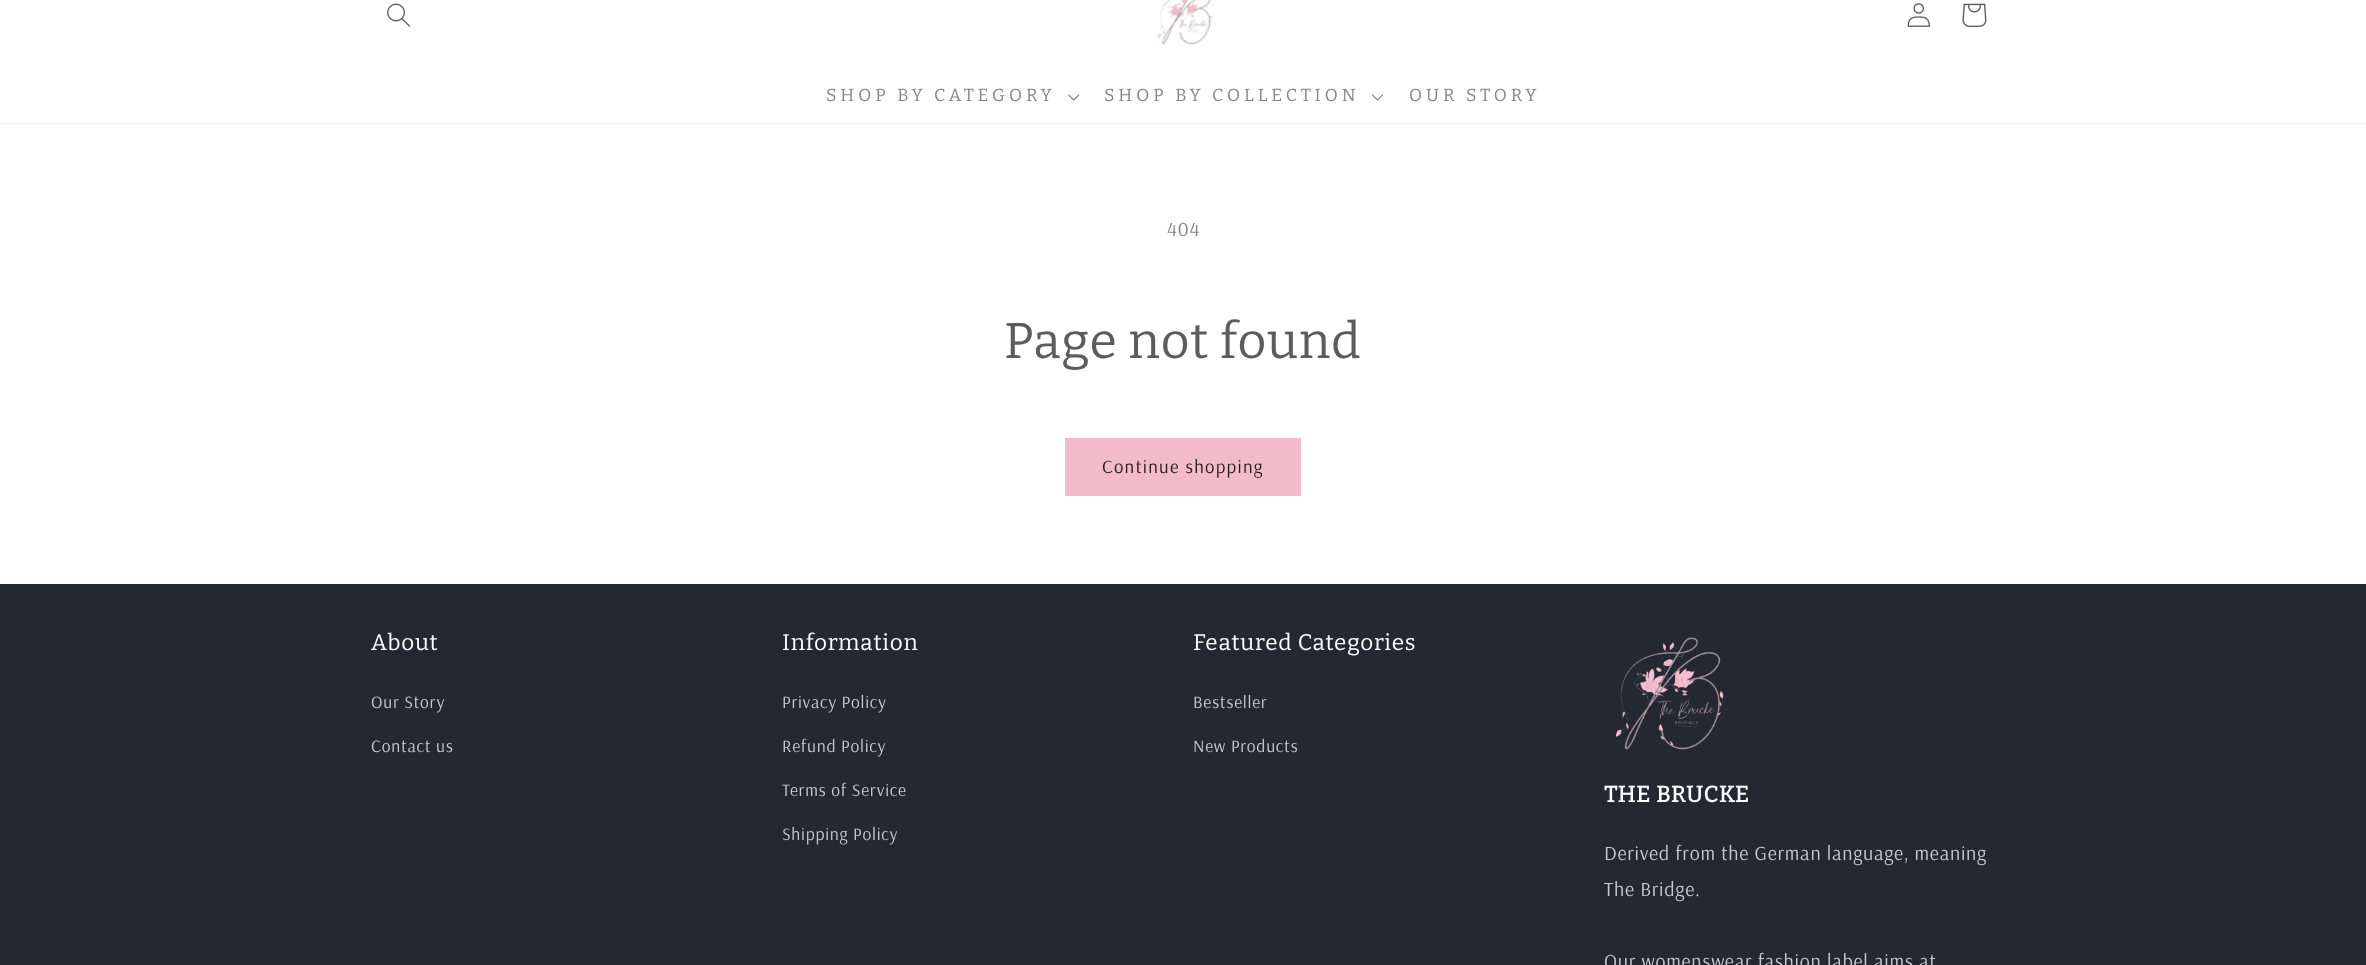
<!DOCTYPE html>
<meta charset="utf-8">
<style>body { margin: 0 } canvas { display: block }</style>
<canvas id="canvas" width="2366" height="965"></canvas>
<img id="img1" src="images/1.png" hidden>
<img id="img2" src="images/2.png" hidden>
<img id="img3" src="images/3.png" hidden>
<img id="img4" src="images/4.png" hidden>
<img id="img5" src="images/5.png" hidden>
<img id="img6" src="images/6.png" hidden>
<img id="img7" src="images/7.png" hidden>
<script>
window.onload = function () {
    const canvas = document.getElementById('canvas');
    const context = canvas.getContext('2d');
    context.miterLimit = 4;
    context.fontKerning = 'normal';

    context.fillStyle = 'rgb(255, 255, 255)';
    context.fillRect(0, 0, 2366, 965);
    context.fillStyle = 'rgb(242, 242, 242)';
    context.fillRect(0, 123, 2366, 1);
    context.drawImage(document.getElementById('img1'), 387, 3, 23, 24);
    context.drawImage(document.getElementById('img2'), 1157, 0, 56, 46);
    context.drawImage(document.getElementById('img3'), 1907, 3, 23, 24);
    context.drawImage(document.getElementById('img4'), 1962, 3, 25, 24);
    context.drawImage(document.getElementById('img5'), 1068, 94, 12, 7);
    context.drawImage(document.getElementById('img6'), 1372, 94, 11, 7);
    context.fillStyle = 'rgb(243, 186, 203)';
    context.fillRect(1065, 438, 236, 58);
    context.fillStyle = 'rgb(36, 40, 51)';
    context.fillRect(0, 584, 2366, 381);
    context.drawImage(document.getElementById('img7'), 1615, 637, 109, 113);
    context.letterSpacing = '4px';
    context.font = '17.5px Bitter';
    context.fillStyle = 'rgb(133, 133, 133)';
    context.fillText('SHOP BY CATEGORY', 826, 101);
    context.fillText('SHOP BY COLLECTION', 1104, 101);
    context.fillText('OUR STORY', 1409, 101);
    context.letterSpacing = '0.75px';
    context.font = '20px Arsenal';
    context.fillText('404', 1167, 236);
    context.font = '50px Bitter';
    context.fillStyle = 'rgb(92, 92, 92)';
    context.fillText('Page not found', 1004, 358);
    context.letterSpacing = '1.25px';
    context.font = '18.75px Arsenal';
    context.fillStyle = 'rgb(28, 27, 27)';
    context.fillText('Continue shopping', 1102, 473);
    context.letterSpacing = '0.75px';
    context.font = '22.5px Bitter';
    context.fillStyle = 'rgb(255, 255, 255)';
    context.fillText('About', 371, 650);
    context.font = '17.5px Arsenal';
    context.fillStyle = 'rgb(200, 201, 204)';
    context.fillText('Our Story', 371, 708);
    context.fillText('Contact us', 371, 752);
    context.font = '22.5px Bitter';
    context.fillStyle = 'rgb(255, 255, 255)';
    context.fillText('Information', 782, 650);
    context.font = '17.5px Arsenal';
    context.fillStyle = 'rgb(200, 201, 204)';
    context.fillText('Privacy Policy', 782, 708);
    context.fillText('Refund Policy', 782, 752);
    context.fillText('Terms of Service', 782, 796);
    context.fillText('Shipping Policy', 782, 840);
    context.font = '22.5px Bitter';
    context.fillStyle = 'rgb(255, 255, 255)';
    context.fillText('Featured Categories', 1193, 650);
    context.font = '17.5px Arsenal';
    context.fillStyle = 'rgb(200, 201, 204)';
    context.fillText('Bestseller', 1193, 708);
    context.fillText('New Products', 1193, 752);
    context.font = 'bold 22.5px Bitter';
    context.fillStyle = 'rgb(255, 255, 255)';
    context.fillText('THE BRUCKE', 1604, 802);
    context.font = '20px Arsenal';
    context.fillStyle = 'rgb(200, 201, 204)';
    context.fillText('Derived from the German language, meaning', 1604, 860);
    context.fillText('The Bridge.', 1604, 896);
    context.fillText('Our womenswear fashion label aims at', 1604, 968);
};
</script>
